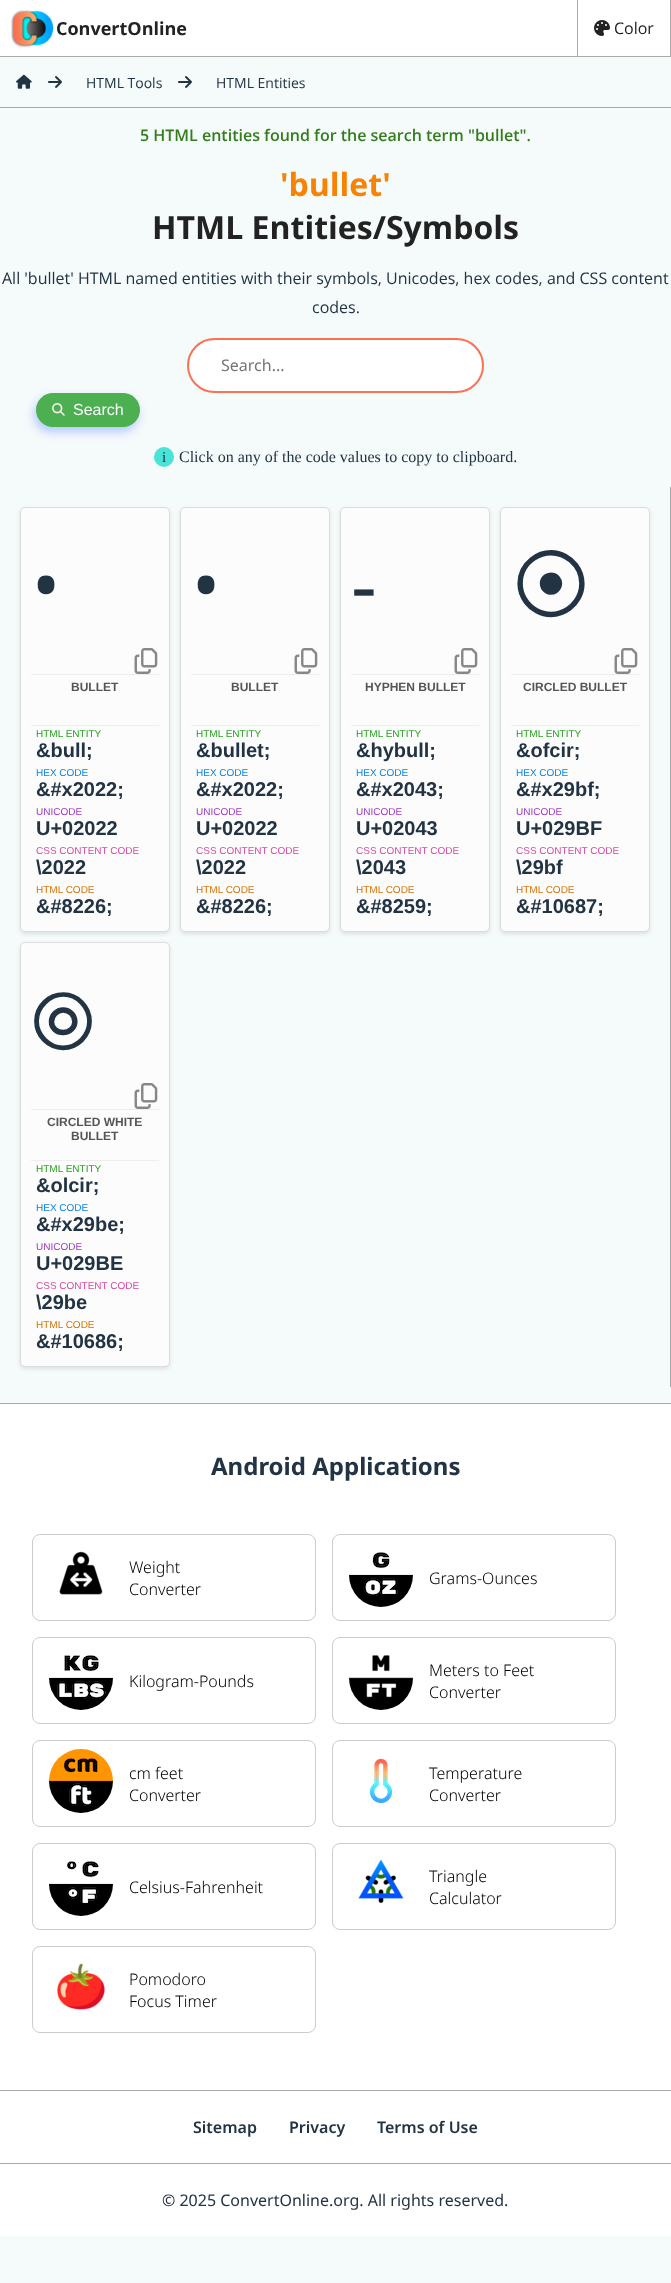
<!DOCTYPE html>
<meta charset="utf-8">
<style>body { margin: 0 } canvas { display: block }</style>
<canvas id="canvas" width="671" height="2283"></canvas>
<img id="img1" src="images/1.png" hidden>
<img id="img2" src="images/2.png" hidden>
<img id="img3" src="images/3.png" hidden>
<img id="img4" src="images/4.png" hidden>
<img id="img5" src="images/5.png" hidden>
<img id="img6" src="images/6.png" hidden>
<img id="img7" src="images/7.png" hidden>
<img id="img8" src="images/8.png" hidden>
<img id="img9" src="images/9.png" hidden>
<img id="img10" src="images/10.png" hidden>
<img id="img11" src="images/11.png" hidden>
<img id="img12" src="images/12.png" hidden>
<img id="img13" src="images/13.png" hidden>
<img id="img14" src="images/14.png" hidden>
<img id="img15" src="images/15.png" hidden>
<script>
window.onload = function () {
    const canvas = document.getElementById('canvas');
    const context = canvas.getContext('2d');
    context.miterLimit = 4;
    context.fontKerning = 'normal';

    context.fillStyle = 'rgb(245, 250, 250)';
    context.fillRect(0, 0, 671, 2283);
    context.fillStyle = 'rgb(255, 255, 255)';
    context.fillRect(0, 0, 670, 56);
    context.drawImage(document.getElementById('img1'), 11, 10, 43, 38);
    context.fillStyle = 'rgb(170, 170, 170)';
    context.fillRect(577, 0, 1, 56);
    context.fillRect(670, 0, 1, 56);
    context.drawImage(document.getElementById('img2'), 594, 20, 16, 16);
    context.fillRect(0, 56, 671, 1);
    context.fillRect(0, 107, 671, 1);
    context.drawImage(document.getElementById('img3'), 16, 74, 16, 15);
    context.drawImage(document.getElementById('img4'), 48, 76, 14, 12);
    context.drawImage(document.getElementById('img4'), 178, 76, 14, 12);
    context.fillStyle = 'rgb(255, 255, 255)';
    context.beginPath();
    context.roundRect(188, 339, 295, 53, 26.5);
    context.fill();
    context.strokeStyle = 'rgb(253, 112, 82)';
    context.lineWidth = 2;
    context.stroke();
    context.fillStyle = 'rgb(179, 200, 255)';
    context.filter = 'blur(5px)';
    context.beginPath();
    context.roundRect(34, 398, 104, 34, 17);
    context.fill();
    context.filter = 'none';
    context.fillStyle = 'rgb(76, 175, 80)';
    context.beginPath();
    context.roundRect(36, 393, 104, 34, 17);
    context.fill();
    context.drawImage(document.getElementById('img5'), 52, 403, 13, 13);
    context.fillStyle = 'rgb(74, 227, 215)';
    context.beginPath();
    context.arc(164, 457, 10, 0, 2 * Math.PI);
    context.fill();
    context.fillStyle = 'rgb(170, 170, 170)';
    context.fillRect(670, 487, 1, 900);
    context.fillStyle = 'rgba(0, 0, 0, 0.1)';
    context.filter = 'blur(2px)';
    context.beginPath();
    context.roundRect(20, 509, 150, 425, 5);
    context.fill();
    context.filter = 'none';
    context.fillStyle = 'rgb(252, 252, 252)';
    context.beginPath();
    context.roundRect(20.5, 507.5, 149, 424, 4.5);
    context.fill();
    context.strokeStyle = 'rgb(221, 221, 221)';
    context.lineWidth = 1;
    context.stroke();
    context.drawImage(document.getElementById('img6'), 134, 648, 24, 26);
    context.fillStyle = 'rgb(238, 238, 238)';
    context.fillRect(31, 674, 128, 1);
    context.fillRect(31, 725, 128, 1);
    context.fillStyle = 'rgba(0, 0, 0, 0.1)';
    context.filter = 'blur(2px)';
    context.beginPath();
    context.roundRect(180, 509, 150, 425, 5);
    context.fill();
    context.filter = 'none';
    context.fillStyle = 'rgb(252, 252, 252)';
    context.beginPath();
    context.roundRect(180.5, 507.5, 149, 424, 4.5);
    context.fill();
    context.stroke();
    context.drawImage(document.getElementById('img6'), 294, 648, 24, 26);
    context.fillStyle = 'rgb(238, 238, 238)';
    context.fillRect(191, 674, 128, 1);
    context.fillRect(191, 725, 128, 1);
    context.fillStyle = 'rgba(0, 0, 0, 0.1)';
    context.filter = 'blur(2px)';
    context.beginPath();
    context.roundRect(340, 509, 150, 425, 5);
    context.fill();
    context.filter = 'none';
    context.fillStyle = 'rgb(252, 252, 252)';
    context.beginPath();
    context.roundRect(340.5, 507.5, 149, 424, 4.5);
    context.fill();
    context.stroke();
    context.drawImage(document.getElementById('img6'), 454, 648, 24, 26);
    context.fillStyle = 'rgb(238, 238, 238)';
    context.fillRect(351, 674, 128, 1);
    context.fillRect(351, 725, 128, 1);
    context.fillStyle = 'rgba(0, 0, 0, 0.1)';
    context.filter = 'blur(2px)';
    context.beginPath();
    context.roundRect(500, 509, 150, 425, 5);
    context.fill();
    context.filter = 'none';
    context.fillStyle = 'rgb(252, 252, 252)';
    context.beginPath();
    context.roundRect(500.5, 507.5, 149, 424, 4.5);
    context.fill();
    context.stroke();
    context.drawImage(document.getElementById('img6'), 614, 648, 24, 26);
    context.fillStyle = 'rgb(238, 238, 238)';
    context.fillRect(511, 674, 128, 1);
    context.fillRect(511, 725, 128, 1);
    context.fillStyle = 'rgba(0, 0, 0, 0.1)';
    context.filter = 'blur(2px)';
    context.beginPath();
    context.roundRect(20, 944, 150, 425, 5);
    context.fill();
    context.filter = 'none';
    context.fillStyle = 'rgb(252, 252, 252)';
    context.beginPath();
    context.roundRect(20.5, 942.5, 149, 424, 4.5);
    context.fill();
    context.stroke();
    context.drawImage(document.getElementById('img6'), 134, 1083, 24, 26);
    context.fillStyle = 'rgb(238, 238, 238)';
    context.fillRect(31, 1109, 128, 1);
    context.fillRect(31, 1160, 128, 1);
    context.fillStyle = 'rgb(255, 255, 255)';
    context.fillRect(0, 1404, 671, 686);
    context.fillStyle = 'rgb(170, 170, 170)';
    context.fillRect(0, 1403, 671, 1);
    context.beginPath();
    context.roundRect(32.5, 1534.5, 283, 86, 7.5);
    context.strokeStyle = 'rgb(204, 204, 204)';
    context.stroke();
    context.drawImage(document.getElementById('img7'), 59, 1551, 44, 44);
    context.beginPath();
    context.roundRect(332.5, 1534.5, 283, 86, 7.5);
    context.stroke();
    context.drawImage(document.getElementById('img8'), 349, 1552, 64, 55);
    context.beginPath();
    context.roundRect(32.5, 1637.5, 283, 86, 7.5);
    context.stroke();
    context.drawImage(document.getElementById('img9'), 49, 1655, 64, 55);
    context.beginPath();
    context.roundRect(332.5, 1637.5, 283, 86, 7.5);
    context.stroke();
    context.drawImage(document.getElementById('img10'), 349, 1655, 64, 55);
    context.beginPath();
    context.roundRect(32.5, 1740.5, 283, 86, 7.5);
    context.stroke();
    context.drawImage(document.getElementById('img11'), 49, 1749, 64, 64);
    context.beginPath();
    context.roundRect(332.5, 1740.5, 283, 86, 7.5);
    context.stroke();
    context.drawImage(document.getElementById('img12'), 369, 1758, 24, 46);
    context.beginPath();
    context.roundRect(32.5, 1843.5, 283, 86, 7.5);
    context.stroke();
    context.drawImage(document.getElementById('img13'), 49, 1861, 64, 55);
    context.beginPath();
    context.roundRect(332.5, 1843.5, 283, 86, 7.5);
    context.stroke();
    context.drawImage(document.getElementById('img14'), 358, 1859, 46, 45);
    context.beginPath();
    context.roundRect(32.5, 1946.5, 283, 86, 7.5);
    context.stroke();
    context.drawImage(document.getElementById('img15'), 57, 1963, 48, 47);
    context.fillStyle = 'rgb(255, 255, 255)';
    context.fillRect(0, 2091, 671, 72);
    context.fillStyle = 'rgb(170, 170, 170)';
    context.fillRect(0, 2090, 671, 1);
    context.fillStyle = 'rgb(255, 255, 255)';
    context.fillRect(0, 2164, 671, 72);
    context.fillStyle = 'rgb(170, 170, 170)';
    context.fillRect(0, 2163, 671, 1);
    context.font = 'bold 18px Open Sans';
    context.fillStyle = 'rgb(34, 34, 34)';
    context.fillText('ConvertOnline', 56, 35);
    context.font = '16px Open Sans';
    context.fillText('Color', 614, 34);
    context.font = '14px Open Sans';
    context.fillStyle = 'rgb(34, 51, 68)';
    context.fillText('HTML Tools', 86, 88);
    context.fillText('HTML Entities', 216, 88);
    context.font = '600 16px Open Sans';
    context.fillStyle = 'rgb(52, 125, 29)';
    context.fillText('5 HTML entities found for the search term "bullet".', 140, 141);
    context.font = 'bold 32px Open Sans';
    context.fillStyle = 'rgb(247, 131, 3)';
    context.fillText('\'bullet\'', 280, 196);
    context.fillStyle = 'rgb(34, 34, 34)';
    context.fillText('HTML Entities/Symbols', 152, 239);
    context.font = '16px Open Sans';
    context.fillStyle = 'rgb(34, 51, 68)';
    context.fillText('All \'bullet\' HTML named entities with their symbols, Unicodes, hex codes, and CSS content', 2, 284);
    context.fillText('codes.', 312, 313);
    context.font = '16px Noto Sans';
    context.fillStyle = 'rgb(117, 117, 117)';
    context.fillText('Search...', 221, 371);
    context.font = '16px Liberation Sans';
    context.fillStyle = 'rgb(255, 255, 255)';
    context.fillText('Search', 73, 415);
    context.font = '15px Liberation Serif';
    context.fillStyle = 'rgb(34, 51, 68)';
    context.fillText('i', 162, 462);
    context.font = '16px Liberation Serif';
    context.fillText('Click on any of the code values to copy to clipboard.', 179, 462);
    context.font = '80px Open Sans';
    context.fillText('•', 31, 614);
    context.font = 'bold 12px Liberation Sans';
    context.fillStyle = 'rgb(85, 85, 85)';
    context.fillText('BULLET', 71, 691);
    context.font = '10px Liberation Sans';
    context.fillStyle = 'rgb(39, 160, 29)';
    context.fillText('HTML ENTITY', 36, 737);
    context.font = 'bold 20px Liberation Sans';
    context.fillStyle = 'rgb(34, 51, 68)';
    context.fillText('&bull;', 36, 757);
    context.font = '10px Liberation Sans';
    context.fillStyle = 'rgb(9, 132, 230)';
    context.fillText('HEX CODE', 36, 776);
    context.font = 'bold 20px Liberation Sans';
    context.fillStyle = 'rgb(34, 51, 68)';
    context.fillText('&#x2022;', 36, 796);
    context.font = '10px Liberation Sans';
    context.fillStyle = 'rgb(164, 54, 206)';
    context.fillText('UNICODE', 36, 815);
    context.font = 'bold 20px Liberation Sans';
    context.fillStyle = 'rgb(34, 51, 68)';
    context.fillText('U+02022', 36, 835);
    context.font = '10px Liberation Sans';
    context.fillStyle = 'rgb(218, 72, 163)';
    context.fillText('CSS CONTENT CODE', 36, 854);
    context.font = 'bold 20px Liberation Sans';
    context.fillStyle = 'rgb(34, 51, 68)';
    context.fillText('\\2022', 36, 874);
    context.font = '10px Liberation Sans';
    context.fillStyle = 'rgb(215, 113, 0)';
    context.fillText('HTML CODE', 36, 893);
    context.font = 'bold 20px Liberation Sans';
    context.fillStyle = 'rgb(34, 51, 68)';
    context.fillText('&#8226;', 36, 913);
    context.font = '80px Open Sans';
    context.fillText('•', 191, 614);
    context.font = 'bold 12px Liberation Sans';
    context.fillStyle = 'rgb(85, 85, 85)';
    context.fillText('BULLET', 231, 691);
    context.font = '10px Liberation Sans';
    context.fillStyle = 'rgb(39, 160, 29)';
    context.fillText('HTML ENTITY', 196, 737);
    context.font = 'bold 20px Liberation Sans';
    context.fillStyle = 'rgb(34, 51, 68)';
    context.fillText('&bullet;', 196, 757);
    context.font = '10px Liberation Sans';
    context.fillStyle = 'rgb(9, 132, 230)';
    context.fillText('HEX CODE', 196, 776);
    context.font = 'bold 20px Liberation Sans';
    context.fillStyle = 'rgb(34, 51, 68)';
    context.fillText('&#x2022;', 196, 796);
    context.font = '10px Liberation Sans';
    context.fillStyle = 'rgb(164, 54, 206)';
    context.fillText('UNICODE', 196, 815);
    context.font = 'bold 20px Liberation Sans';
    context.fillStyle = 'rgb(34, 51, 68)';
    context.fillText('U+02022', 196, 835);
    context.font = '10px Liberation Sans';
    context.fillStyle = 'rgb(218, 72, 163)';
    context.fillText('CSS CONTENT CODE', 196, 854);
    context.font = 'bold 20px Liberation Sans';
    context.fillStyle = 'rgb(34, 51, 68)';
    context.fillText('\\2022', 196, 874);
    context.font = '10px Liberation Sans';
    context.fillStyle = 'rgb(215, 113, 0)';
    context.fillText('HTML CODE', 196, 893);
    context.font = 'bold 20px Liberation Sans';
    context.fillStyle = 'rgb(34, 51, 68)';
    context.fillText('&#8226;', 196, 913);
    context.font = '80px Noto Sans';
    context.fillText('⁃', 351, 614);
    context.font = 'bold 12px Liberation Sans';
    context.fillStyle = 'rgb(85, 85, 85)';
    context.fillText('HYPHEN BULLET', 365, 691);
    context.font = '10px Liberation Sans';
    context.fillStyle = 'rgb(39, 160, 29)';
    context.fillText('HTML ENTITY', 356, 737);
    context.font = 'bold 20px Liberation Sans';
    context.fillStyle = 'rgb(34, 51, 68)';
    context.fillText('&hybull;', 356, 757);
    context.font = '10px Liberation Sans';
    context.fillStyle = 'rgb(9, 132, 230)';
    context.fillText('HEX CODE', 356, 776);
    context.font = 'bold 20px Liberation Sans';
    context.fillStyle = 'rgb(34, 51, 68)';
    context.fillText('&#x2043;', 356, 796);
    context.font = '10px Liberation Sans';
    context.fillStyle = 'rgb(164, 54, 206)';
    context.fillText('UNICODE', 356, 815);
    context.font = 'bold 20px Liberation Sans';
    context.fillStyle = 'rgb(34, 51, 68)';
    context.fillText('U+02043', 356, 835);
    context.font = '10px Liberation Sans';
    context.fillStyle = 'rgb(218, 72, 163)';
    context.fillText('CSS CONTENT CODE', 356, 854);
    context.font = 'bold 20px Liberation Sans';
    context.fillStyle = 'rgb(34, 51, 68)';
    context.fillText('\\2043', 356, 874);
    context.font = '10px Liberation Sans';
    context.fillStyle = 'rgb(215, 113, 0)';
    context.fillText('HTML CODE', 356, 893);
    context.font = 'bold 20px Liberation Sans';
    context.fillStyle = 'rgb(34, 51, 68)';
    context.fillText('&#8259;', 356, 913);
    context.font = '80px IPAGothic';
    context.fillText('⦿', 511, 614);
    context.font = 'bold 12px Liberation Sans';
    context.fillStyle = 'rgb(85, 85, 85)';
    context.fillText('CIRCLED BULLET', 523, 691);
    context.font = '10px Liberation Sans';
    context.fillStyle = 'rgb(39, 160, 29)';
    context.fillText('HTML ENTITY', 516, 737);
    context.font = 'bold 20px Liberation Sans';
    context.fillStyle = 'rgb(34, 51, 68)';
    context.fillText('&ofcir;', 516, 757);
    context.font = '10px Liberation Sans';
    context.fillStyle = 'rgb(9, 132, 230)';
    context.fillText('HEX CODE', 516, 776);
    context.font = 'bold 20px Liberation Sans';
    context.fillStyle = 'rgb(34, 51, 68)';
    context.fillText('&#x29bf;', 516, 796);
    context.font = '10px Liberation Sans';
    context.fillStyle = 'rgb(164, 54, 206)';
    context.fillText('UNICODE', 516, 815);
    context.font = 'bold 20px Liberation Sans';
    context.fillStyle = 'rgb(34, 51, 68)';
    context.fillText('U+029BF', 516, 835);
    context.font = '10px Liberation Sans';
    context.fillStyle = 'rgb(218, 72, 163)';
    context.fillText('CSS CONTENT CODE', 516, 854);
    context.font = 'bold 20px Liberation Sans';
    context.fillStyle = 'rgb(34, 51, 68)';
    context.fillText('\\29bf', 516, 874);
    context.font = '10px Liberation Sans';
    context.fillStyle = 'rgb(215, 113, 0)';
    context.fillText('HTML CODE', 516, 893);
    context.font = 'bold 20px Liberation Sans';
    context.fillStyle = 'rgb(34, 51, 68)';
    context.fillText('&#10687;', 516, 913);
    context.font = '80px FreeSans';
    context.fillText('⦾', 31, 1049);
    context.font = 'bold 12px Liberation Sans';
    context.fillStyle = 'rgb(85, 85, 85)';
    context.fillText('CIRCLED WHITE', 47, 1126);
    context.fillText('BULLET', 71, 1140);
    context.font = '10px Liberation Sans';
    context.fillStyle = 'rgb(39, 160, 29)';
    context.fillText('HTML ENTITY', 36, 1172);
    context.font = 'bold 20px Liberation Sans';
    context.fillStyle = 'rgb(34, 51, 68)';
    context.fillText('&olcir;', 36, 1192);
    context.font = '10px Liberation Sans';
    context.fillStyle = 'rgb(9, 132, 230)';
    context.fillText('HEX CODE', 36, 1211);
    context.font = 'bold 20px Liberation Sans';
    context.fillStyle = 'rgb(34, 51, 68)';
    context.fillText('&#x29be;', 36, 1231);
    context.font = '10px Liberation Sans';
    context.fillStyle = 'rgb(164, 54, 206)';
    context.fillText('UNICODE', 36, 1250);
    context.font = 'bold 20px Liberation Sans';
    context.fillStyle = 'rgb(34, 51, 68)';
    context.fillText('U+029BE', 36, 1270);
    context.font = '10px Liberation Sans';
    context.fillStyle = 'rgb(218, 72, 163)';
    context.fillText('CSS CONTENT CODE', 36, 1289);
    context.font = 'bold 20px Liberation Sans';
    context.fillStyle = 'rgb(34, 51, 68)';
    context.fillText('\\29be', 36, 1309);
    context.font = '10px Liberation Sans';
    context.fillStyle = 'rgb(215, 113, 0)';
    context.fillText('HTML CODE', 36, 1328);
    context.font = 'bold 20px Liberation Sans';
    context.fillStyle = 'rgb(34, 51, 68)';
    context.fillText('&#10686;', 36, 1348);
    context.font = 'bold 24px Noto Sans';
    context.fillText('Android Applications', 211, 1475);
    context.font = '300 16px Noto Sans';
    context.fillStyle = 'rgb(0, 0, 0)';
    context.fillText('Weight', 129, 1573);
    context.fillText('Converter', 129, 1595);
    context.fillText('Grams-Ounces', 429, 1584);
    context.fillText('Kilogram-Pounds', 129, 1687);
    context.fillText('Meters to Feet', 429, 1676);
    context.fillText('Converter', 429, 1698);
    context.fillText('cm feet', 129, 1779);
    context.fillText('Converter', 129, 1801);
    context.fillText('Temperature', 429, 1779);
    context.fillText('Converter', 429, 1801);
    context.fillText('Celsius-Fahrenheit', 129, 1893);
    context.fillText('Triangle', 429, 1882);
    context.fillText('Calculator', 429, 1904);
    context.fillText('Pomodoro', 129, 1985);
    context.fillText('Focus Timer', 129, 2007);
    context.font = '600 16px Noto Sans';
    context.fillStyle = 'rgb(34, 51, 68)';
    context.fillText('Sitemap', 193, 2133);
    context.fillText('Privacy', 289, 2133);
    context.fillText('Terms of Use', 377, 2133);
    context.font = '16px Noto Sans';
    context.fillText('© 2025 ConvertOnline.org. All rights reserved.', 162, 2206);
};
</script>
